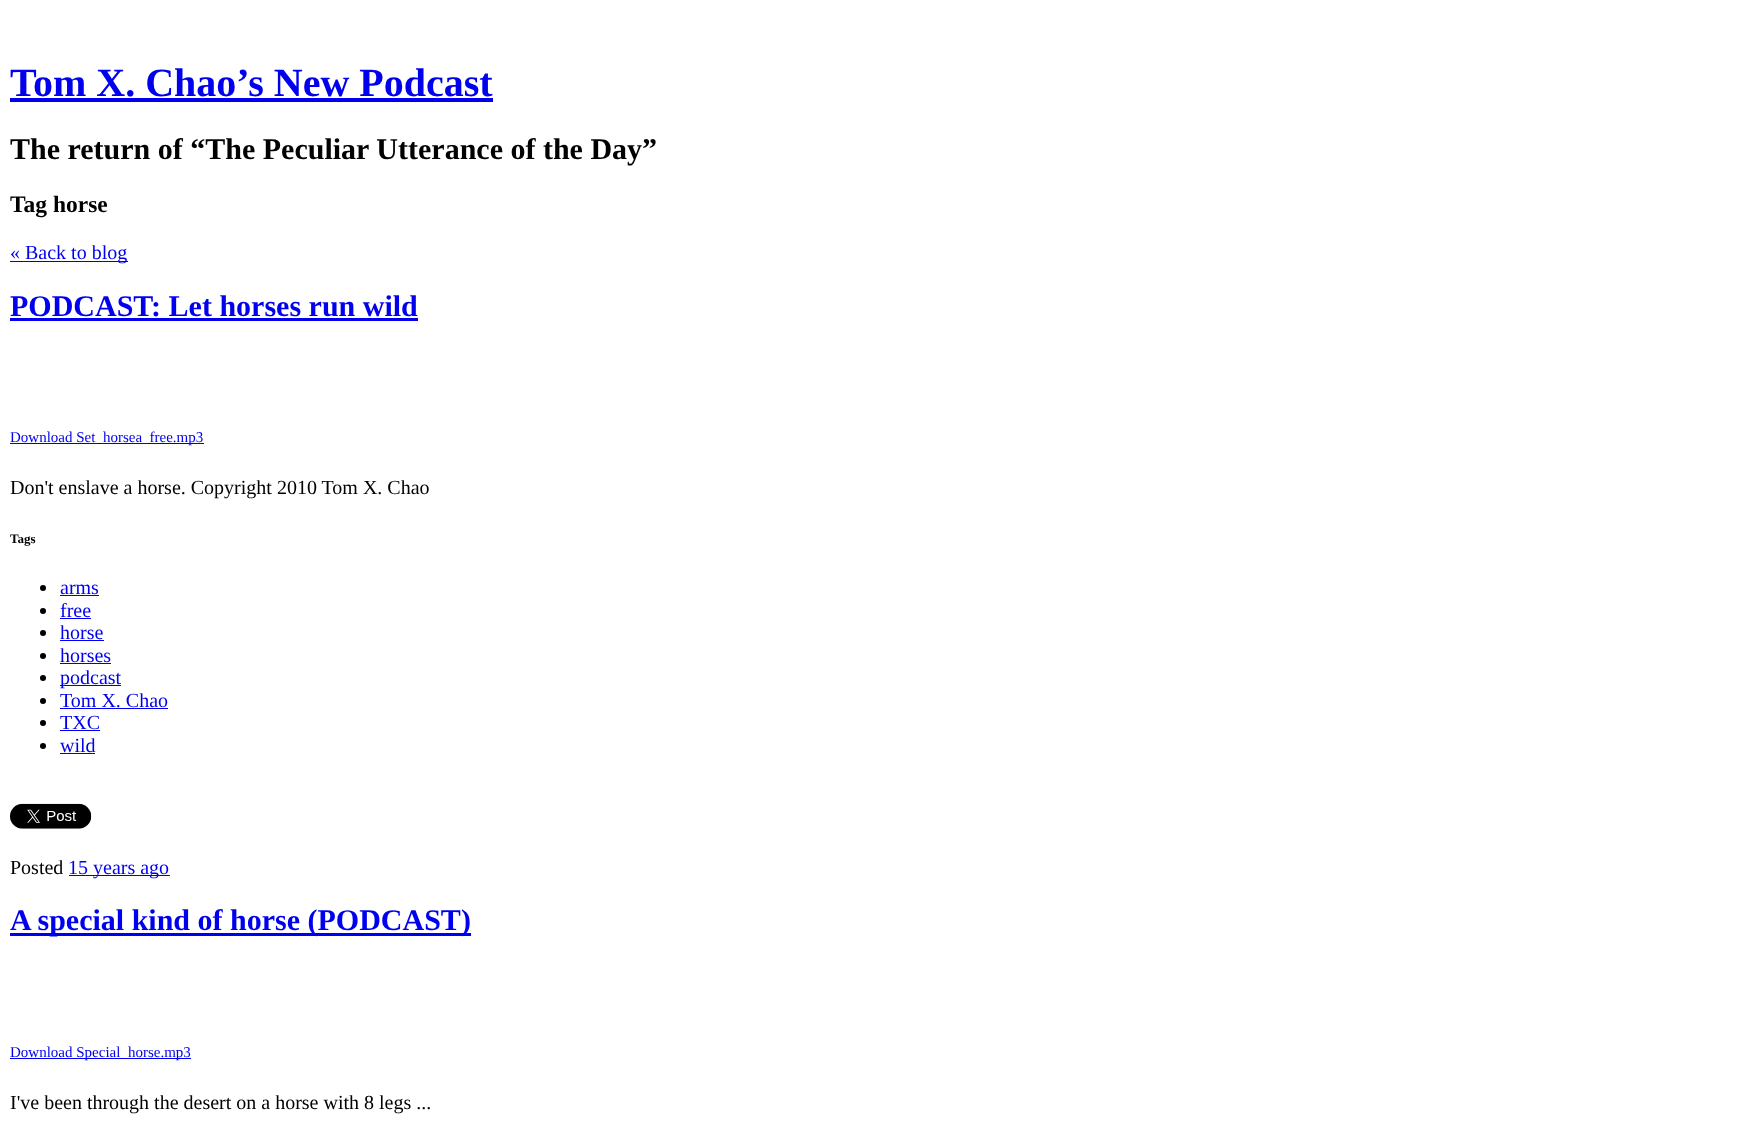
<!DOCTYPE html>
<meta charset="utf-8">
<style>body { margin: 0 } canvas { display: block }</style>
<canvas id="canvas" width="1763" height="1130"></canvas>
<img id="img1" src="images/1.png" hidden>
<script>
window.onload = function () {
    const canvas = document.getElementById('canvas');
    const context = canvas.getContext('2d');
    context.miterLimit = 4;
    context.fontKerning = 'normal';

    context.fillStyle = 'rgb(255, 255, 255)';
    context.fillRect(0, 0, 1763, 1130);
    context.fillStyle = 'rgb(0, 0, 238)';
    context.fillRect(10, 98, 483, 4);
    context.fillRect(10, 261, 118, 1);
    context.fillRect(10, 318, 408, 3);
    context.fillRect(10, 443, 194, 1);
    context.fillStyle = 'rgb(0, 0, 0)';
    context.beginPath();
    context.arc(43, 588, 3, 0, 2 * Math.PI);
    context.fill();
    context.fillStyle = 'rgb(0, 0, 238)';
    context.fillRect(60, 595, 39, 1);
    context.fillStyle = 'rgb(0, 0, 0)';
    context.beginPath();
    context.arc(43, 611, 3, 0, 2 * Math.PI);
    context.fill();
    context.fillStyle = 'rgb(0, 0, 238)';
    context.fillRect(60, 618, 31, 1);
    context.fillStyle = 'rgb(0, 0, 0)';
    context.beginPath();
    context.arc(43, 633, 3, 0, 2 * Math.PI);
    context.fill();
    context.fillStyle = 'rgb(0, 0, 238)';
    context.fillRect(60, 640, 44, 1);
    context.fillStyle = 'rgb(0, 0, 0)';
    context.beginPath();
    context.arc(43, 656, 3, 0, 2 * Math.PI);
    context.fill();
    context.fillStyle = 'rgb(0, 0, 238)';
    context.fillRect(60, 663, 51, 1);
    context.fillStyle = 'rgb(0, 0, 0)';
    context.beginPath();
    context.arc(43, 678, 3, 0, 2 * Math.PI);
    context.fill();
    context.fillStyle = 'rgb(0, 0, 238)';
    context.fillRect(60, 685, 61, 1);
    context.fillStyle = 'rgb(0, 0, 0)';
    context.beginPath();
    context.arc(43, 701, 3, 0, 2 * Math.PI);
    context.fill();
    context.fillStyle = 'rgb(0, 0, 238)';
    context.fillRect(60, 708, 108, 1);
    context.fillStyle = 'rgb(0, 0, 0)';
    context.beginPath();
    context.arc(43, 723, 3, 0, 2 * Math.PI);
    context.fill();
    context.fillStyle = 'rgb(0, 0, 238)';
    context.fillRect(60, 730, 40, 1);
    context.fillStyle = 'rgb(0, 0, 0)';
    context.beginPath();
    context.arc(43, 746, 3, 0, 2 * Math.PI);
    context.fill();
    context.fillStyle = 'rgb(0, 0, 238)';
    context.fillRect(60, 753, 35, 1);
    context.drawImage(document.getElementById('img1'), 10, 803, 82, 26);
    context.fillRect(69, 875, 101, 1);
    context.fillRect(10, 933, 461, 3);
    context.fillRect(10, 1058, 181, 1);
    context.font = 'bold 40px Liberation Serif';
    context.fillText('Tom X. Chao’s New Podcast', 10, 96);
    context.font = 'bold 30px Liberation Serif';
    context.fillStyle = 'rgb(0, 0, 0)';
    context.fillText('The return of “The Peculiar Utterance of the Day”', 10, 159);
    context.font = 'bold 23.5px Liberation Serif';
    context.fillText('Tag horse', 10, 212);
    context.font = '20px Liberation Serif';
    context.fillStyle = 'rgb(0, 0, 238)';
    context.fillText('« Back to blog', 10, 259);
    context.font = 'bold 30px Liberation Serif';
    context.fillText('PODCAST: Let horses run wild', 10, 316);
    context.font = '15px Liberation Serif';
    context.fillText('Download Set_horsea_free.mp3', 10, 442);
    context.font = '20px Liberation Serif';
    context.fillStyle = 'rgb(0, 0, 0)';
    context.fillText('Don\'t enslave a horse. Copyright 2010 Tom X. Chao', 10, 494);
    context.font = 'bold 13px Liberation Serif';
    context.fillText('Tags', 10, 543);
    context.font = '20px Liberation Serif';
    context.fillStyle = 'rgb(0, 0, 238)';
    context.fillText('arms', 60, 594);
    context.fillText('free', 60, 617);
    context.fillText('horse', 60, 639);
    context.fillText('horses', 60, 662);
    context.fillText('podcast', 60, 684);
    context.fillText('Tom X. Chao', 60, 707);
    context.fillText('TXC', 60, 729);
    context.fillText('wild', 60, 752);
    context.fillStyle = 'rgb(0, 0, 0)';
    context.fillText('Posted', 10, 874);
    context.fillStyle = 'rgb(0, 0, 238)';
    context.fillText('15 years ago', 68, 874);
    context.font = 'bold 30px Liberation Serif';
    context.fillText('A special kind of horse (PODCAST)', 10, 930);
    context.font = '15px Liberation Serif';
    context.fillText('Download Special_horse.mp3', 10, 1057);
    context.font = '20px Liberation Serif';
    context.fillStyle = 'rgb(0, 0, 0)';
    context.fillText('I\'ve been through the desert on a horse with 8 legs ...', 10, 1109);
};
</script>
